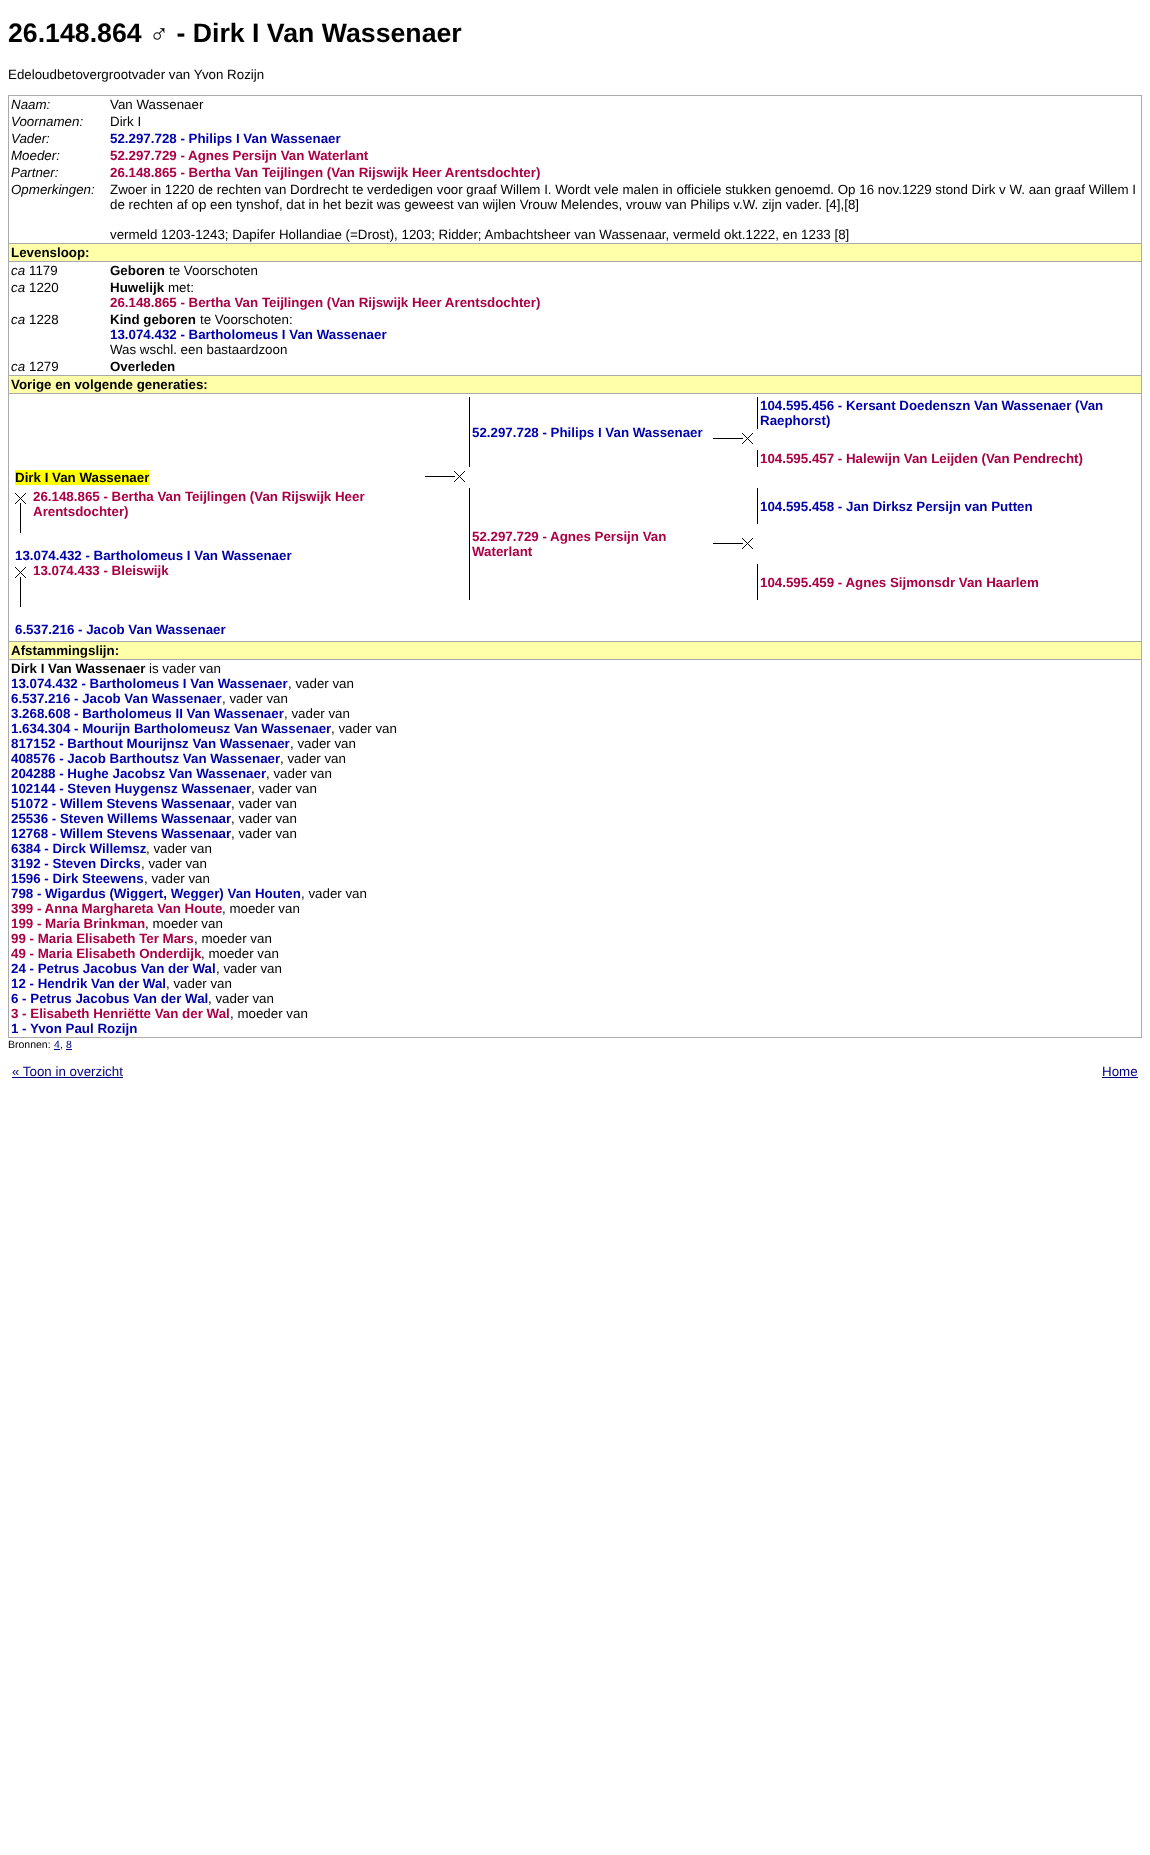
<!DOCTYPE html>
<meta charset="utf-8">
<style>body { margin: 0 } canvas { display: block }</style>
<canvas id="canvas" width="1150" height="1855"></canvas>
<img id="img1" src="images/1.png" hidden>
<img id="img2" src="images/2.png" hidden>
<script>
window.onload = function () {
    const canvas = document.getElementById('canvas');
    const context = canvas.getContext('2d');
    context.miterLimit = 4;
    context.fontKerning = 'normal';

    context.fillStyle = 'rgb(255, 255, 255)';
    context.fillRect(0, 0, 1150, 1855);
    context.fillStyle = 'rgb(170, 170, 170)';
    context.fillRect(8, 95, 1134, 1);
    context.fillRect(1141, 95, 1, 943);
    context.fillRect(8, 1037, 1134, 1);
    context.fillRect(8, 95, 1, 943);
    context.fillStyle = 'rgb(255, 255, 170)';
    context.fillRect(9, 244, 1132, 17);
    context.fillStyle = 'rgb(170, 170, 170)';
    context.fillRect(8, 243, 1134, 1);
    context.fillRect(8, 261, 1134, 1);
    context.fillStyle = 'rgb(255, 255, 170)';
    context.fillRect(9, 376, 1132, 17);
    context.fillStyle = 'rgb(170, 170, 170)';
    context.fillRect(8, 375, 1134, 1);
    context.fillRect(8, 393, 1134, 1);
    context.fillStyle = 'rgb(0, 0, 0)';
    context.fillRect(757, 397, 1, 32);
    context.fillRect(469, 397, 1, 70);
    context.drawImage(document.getElementById('img1'), 713, 433, 40, 11);
    context.fillRect(757, 450, 1, 17);
    context.fillStyle = 'rgb(255, 255, 0)';
    context.fillRect(15, 470, 134, 15);
    context.drawImage(document.getElementById('img1'), 425, 471, 40, 11);
    context.drawImage(document.getElementById('img2'), 15, 493, 11, 40);
    context.drawImage(document.getElementById('img2'), 15, 567, 11, 40);
    context.fillStyle = 'rgb(0, 0, 0)';
    context.fillRect(757, 488, 1, 36);
    context.fillRect(469, 488, 1, 112);
    context.drawImage(document.getElementById('img1'), 713, 538, 40, 11);
    context.fillRect(757, 564, 1, 36);
    context.fillStyle = 'rgb(255, 255, 170)';
    context.fillRect(9, 642, 1132, 17);
    context.fillStyle = 'rgb(170, 170, 170)';
    context.fillRect(8, 641, 1134, 1);
    context.fillRect(8, 659, 1134, 1);
    context.fillStyle = 'rgb(0, 0, 128)';
    context.fillRect(54, 1049, 6, 1);
    context.fillRect(66, 1049, 6, 1);
    context.fillRect(12, 1077, 111, 1);
    context.fillRect(1102, 1077, 36, 1);
    context.font = 'bold 26.7px Liberation Sans';
    context.fillStyle = 'rgb(0, 0, 0)';
    context.fillText('26.148.864 ♂ - Dirk I Van Wassenaer', 8, 42);
    context.font = '13.33px Liberation Sans';
    context.fillText('Edeloudbetovergrootvader van Yvon Rozijn', 8, 79);
    context.font = 'italic 13.33px Liberation Sans';
    context.fillText('Naam:', 11, 109);
    context.font = '13.33px Liberation Sans';
    context.fillText('Van Wassenaer', 110, 109);
    context.font = 'italic 13.33px Liberation Sans';
    context.fillText('Voornamen:', 11, 126);
    context.font = '13.33px Liberation Sans';
    context.fillText('Dirk I', 110, 126);
    context.font = 'italic 13.33px Liberation Sans';
    context.fillText('Vader:', 11, 143);
    context.font = 'bold 13.33px Liberation Sans';
    context.fillStyle = 'rgb(0, 0, 170)';
    context.fillText('52.297.728 - Philips I Van Wassenaer', 110, 143);
    context.font = 'italic 13.33px Liberation Sans';
    context.fillStyle = 'rgb(0, 0, 0)';
    context.fillText('Moeder:', 11, 160);
    context.font = 'bold 13.33px Liberation Sans';
    context.fillStyle = 'rgb(170, 0, 68)';
    context.fillText('52.297.729 - Agnes Persijn Van Waterlant', 110, 160);
    context.font = 'italic 13.33px Liberation Sans';
    context.fillStyle = 'rgb(0, 0, 0)';
    context.fillText('Partner:', 11, 177);
    context.font = 'bold 13.33px Liberation Sans';
    context.fillStyle = 'rgb(170, 0, 68)';
    context.fillText('26.148.865 - Bertha Van Teijlingen (Van Rijswijk Heer Arentsdochter)', 110, 177);
    context.font = 'italic 13.33px Liberation Sans';
    context.fillStyle = 'rgb(0, 0, 0)';
    context.fillText('Opmerkingen:', 11, 194);
    context.font = '13.33px Liberation Sans';
    context.fillText('Zwoer in 1220 de rechten van Dordrecht te verdedigen voor graaf Willem I. Wordt vele malen in officiele stukken genoemd. Op 16 nov.1229 stond Dirk v W. aan graaf Willem I', 110, 194);
    context.fillText('de rechten af op een tynshof, dat in het bezit was geweest van wijlen Vrouw Melendes, vrouw van Philips v.W. zijn vader. [4],[8]', 110, 209);
    context.fillText('vermeld 1203-1243; Dapifer Hollandiae (=Drost), 1203; Ridder; Ambachtsheer van Wassenaar, vermeld okt.1222, en 1233 [8]', 110, 239);
    context.font = 'bold 13.33px Liberation Sans';
    context.fillText('Levensloop:', 11, 257);
    context.font = 'italic 13.33px Liberation Sans';
    context.fillText('ca', 11, 275);
    context.font = '13.33px Liberation Sans';
    context.fillText('1179', 29, 275);
    context.font = 'bold 13.33px Liberation Sans';
    context.fillText('Geboren', 110, 275);
    context.font = '13.33px Liberation Sans';
    context.fillText('te Voorschoten', 169, 275);
    context.font = 'italic 13.33px Liberation Sans';
    context.fillText('ca', 11, 292);
    context.font = '13.33px Liberation Sans';
    context.fillText('1220', 29, 292);
    context.font = 'bold 13.33px Liberation Sans';
    context.fillText('Huwelijk', 110, 292);
    context.font = '13.33px Liberation Sans';
    context.fillText('met:', 168, 292);
    context.font = 'bold 13.33px Liberation Sans';
    context.fillStyle = 'rgb(170, 0, 68)';
    context.fillText('26.148.865 - Bertha Van Teijlingen (Van Rijswijk Heer Arentsdochter)', 110, 307);
    context.font = 'italic 13.33px Liberation Sans';
    context.fillStyle = 'rgb(0, 0, 0)';
    context.fillText('ca', 11, 324);
    context.font = '13.33px Liberation Sans';
    context.fillText('1228', 29, 324);
    context.font = 'bold 13.33px Liberation Sans';
    context.fillText('Kind geboren', 110, 324);
    context.font = '13.33px Liberation Sans';
    context.fillText('te Voorschoten:', 200, 324);
    context.font = 'bold 13.33px Liberation Sans';
    context.fillStyle = 'rgb(0, 0, 170)';
    context.fillText('13.074.432 - Bartholomeus I Van Wassenaer', 110, 339);
    context.font = '13.33px Liberation Sans';
    context.fillStyle = 'rgb(0, 0, 0)';
    context.fillText('Was wschl. een bastaardzoon', 110, 354);
    context.font = 'italic 13.33px Liberation Sans';
    context.fillText('ca', 11, 371);
    context.font = '13.33px Liberation Sans';
    context.fillText('1279', 29, 371);
    context.font = 'bold 13.33px Liberation Sans';
    context.fillText('Overleden', 110, 371);
    context.fillText('Vorige en volgende generaties:', 11, 389);
    context.fillStyle = 'rgb(0, 0, 170)';
    context.fillText('104.595.456 - Kersant Doedenszn Van Wassenaer (Van', 760, 410);
    context.fillText('Raephorst)', 760, 425);
    context.fillText('52.297.728 - Philips I Van Wassenaer', 472, 437);
    context.fillStyle = 'rgb(170, 0, 68)';
    context.fillText('104.595.457 - Halewijn Van Leijden (Van Pendrecht)', 760, 463);
    context.fillStyle = 'rgb(0, 0, 0)';
    context.fillText('Dirk I Van Wassenaer', 15, 482);
    context.fillStyle = 'rgb(170, 0, 68)';
    context.fillText('26.148.865 - Bertha Van Teijlingen (Van Rijswijk Heer', 33, 501);
    context.fillText('Arentsdochter)', 33, 516);
    context.fillStyle = 'rgb(0, 0, 170)';
    context.fillText('13.074.432 - Bartholomeus I Van Wassenaer', 15, 560);
    context.fillStyle = 'rgb(170, 0, 68)';
    context.fillText('13.074.433 - Bleiswijk', 33, 575);
    context.fillStyle = 'rgb(0, 0, 170)';
    context.fillText('6.537.216 - Jacob Van Wassenaer', 15, 634);
    context.fillText('104.595.458 - Jan Dirksz Persijn van Putten', 760, 511);
    context.fillStyle = 'rgb(170, 0, 68)';
    context.fillText('52.297.729 - Agnes Persijn Van', 472, 541);
    context.fillText('Waterlant', 472, 556);
    context.fillText('104.595.459 - Agnes Sijmonsdr Van Haarlem', 760, 587);
    context.fillStyle = 'rgb(0, 0, 0)';
    context.fillText('Afstammingslijn:', 11, 655);
    context.fillText('Dirk I Van Wassenaer', 11, 673);
    context.font = '13.33px Liberation Sans';
    context.fillText('is vader van', 149, 673);
    context.font = 'bold 13.33px Liberation Sans';
    context.fillStyle = 'rgb(0, 0, 170)';
    context.fillText('13.074.432 - Bartholomeus I Van Wassenaer', 11, 688);
    context.font = '13.33px Liberation Sans';
    context.fillStyle = 'rgb(0, 0, 0)';
    context.fillText(', vader van', 288, 688);
    context.font = 'bold 13.33px Liberation Sans';
    context.fillStyle = 'rgb(0, 0, 170)';
    context.fillText('6.537.216 - Jacob Van Wassenaer', 11, 703);
    context.font = '13.33px Liberation Sans';
    context.fillStyle = 'rgb(0, 0, 0)';
    context.fillText(', vader van', 222, 703);
    context.font = 'bold 13.33px Liberation Sans';
    context.fillStyle = 'rgb(0, 0, 170)';
    context.fillText('3.268.608 - Bartholomeus II Van Wassenaer', 11, 718);
    context.font = '13.33px Liberation Sans';
    context.fillStyle = 'rgb(0, 0, 0)';
    context.fillText(', vader van', 284, 718);
    context.font = 'bold 13.33px Liberation Sans';
    context.fillStyle = 'rgb(0, 0, 170)';
    context.fillText('1.634.304 - Mourijn Bartholomeusz Van Wassenaer', 11, 733);
    context.font = '13.33px Liberation Sans';
    context.fillStyle = 'rgb(0, 0, 0)';
    context.fillText(', vader van', 331, 733);
    context.font = 'bold 13.33px Liberation Sans';
    context.fillStyle = 'rgb(0, 0, 170)';
    context.fillText('817152 - Barthout Mourijnsz Van Wassenaer', 11, 748);
    context.font = '13.33px Liberation Sans';
    context.fillStyle = 'rgb(0, 0, 0)';
    context.fillText(', vader van', 290, 748);
    context.font = 'bold 13.33px Liberation Sans';
    context.fillStyle = 'rgb(0, 0, 170)';
    context.fillText('408576 - Jacob Barthoutsz Van Wassenaer', 11, 763);
    context.font = '13.33px Liberation Sans';
    context.fillStyle = 'rgb(0, 0, 0)';
    context.fillText(', vader van', 280, 763);
    context.font = 'bold 13.33px Liberation Sans';
    context.fillStyle = 'rgb(0, 0, 170)';
    context.fillText('204288 - Hughe Jacobsz Van Wassenaer', 11, 778);
    context.font = '13.33px Liberation Sans';
    context.fillStyle = 'rgb(0, 0, 0)';
    context.fillText(', vader van', 266, 778);
    context.font = 'bold 13.33px Liberation Sans';
    context.fillStyle = 'rgb(0, 0, 170)';
    context.fillText('102144 - Steven Huygensz Wassenaer', 11, 793);
    context.font = '13.33px Liberation Sans';
    context.fillStyle = 'rgb(0, 0, 0)';
    context.fillText(', vader van', 251, 793);
    context.font = 'bold 13.33px Liberation Sans';
    context.fillStyle = 'rgb(0, 0, 170)';
    context.fillText('51072 - Willem Stevens Wassenaar', 11, 808);
    context.font = '13.33px Liberation Sans';
    context.fillStyle = 'rgb(0, 0, 0)';
    context.fillText(', vader van', 231, 808);
    context.font = 'bold 13.33px Liberation Sans';
    context.fillStyle = 'rgb(0, 0, 170)';
    context.fillText('25536 - Steven Willems Wassenaar', 11, 823);
    context.font = '13.33px Liberation Sans';
    context.fillStyle = 'rgb(0, 0, 0)';
    context.fillText(', vader van', 231, 823);
    context.font = 'bold 13.33px Liberation Sans';
    context.fillStyle = 'rgb(0, 0, 170)';
    context.fillText('12768 - Willem Stevens Wassenaar', 11, 838);
    context.font = '13.33px Liberation Sans';
    context.fillStyle = 'rgb(0, 0, 0)';
    context.fillText(', vader van', 231, 838);
    context.font = 'bold 13.33px Liberation Sans';
    context.fillStyle = 'rgb(0, 0, 170)';
    context.fillText('6384 - Dirck Willemsz', 11, 853);
    context.font = '13.33px Liberation Sans';
    context.fillStyle = 'rgb(0, 0, 0)';
    context.fillText(', vader van', 146, 853);
    context.font = 'bold 13.33px Liberation Sans';
    context.fillStyle = 'rgb(0, 0, 170)';
    context.fillText('3192 - Steven Dircks', 11, 868);
    context.font = '13.33px Liberation Sans';
    context.fillStyle = 'rgb(0, 0, 0)';
    context.fillText(', vader van', 141, 868);
    context.font = 'bold 13.33px Liberation Sans';
    context.fillStyle = 'rgb(0, 0, 170)';
    context.fillText('1596 - Dirk Steewens', 11, 883);
    context.font = '13.33px Liberation Sans';
    context.fillStyle = 'rgb(0, 0, 0)';
    context.fillText(', vader van', 144, 883);
    context.font = 'bold 13.33px Liberation Sans';
    context.fillStyle = 'rgb(0, 0, 170)';
    context.fillText('798 - Wigardus (Wiggert, Wegger) Van Houten', 11, 898);
    context.font = '13.33px Liberation Sans';
    context.fillStyle = 'rgb(0, 0, 0)';
    context.fillText(', vader van', 301, 898);
    context.font = 'bold 13.33px Liberation Sans';
    context.fillStyle = 'rgb(170, 0, 68)';
    context.fillText('399 - Anna Marghareta Van Houte', 11, 913);
    context.font = '13.33px Liberation Sans';
    context.fillStyle = 'rgb(0, 0, 0)';
    context.fillText(', moeder van', 222, 913);
    context.font = 'bold 13.33px Liberation Sans';
    context.fillStyle = 'rgb(170, 0, 68)';
    context.fillText('199 - Maria Brinkman', 11, 928);
    context.font = '13.33px Liberation Sans';
    context.fillStyle = 'rgb(0, 0, 0)';
    context.fillText(', moeder van', 145, 928);
    context.font = 'bold 13.33px Liberation Sans';
    context.fillStyle = 'rgb(170, 0, 68)';
    context.fillText('99 - Maria Elisabeth Ter Mars', 11, 943);
    context.font = '13.33px Liberation Sans';
    context.fillStyle = 'rgb(0, 0, 0)';
    context.fillText(', moeder van', 194, 943);
    context.font = 'bold 13.33px Liberation Sans';
    context.fillStyle = 'rgb(170, 0, 68)';
    context.fillText('49 - Maria Elisabeth Onderdijk', 11, 958);
    context.font = '13.33px Liberation Sans';
    context.fillStyle = 'rgb(0, 0, 0)';
    context.fillText(', moeder van', 201, 958);
    context.font = 'bold 13.33px Liberation Sans';
    context.fillStyle = 'rgb(0, 0, 170)';
    context.fillText('24 - Petrus Jacobus Van der Wal', 11, 973);
    context.font = '13.33px Liberation Sans';
    context.fillStyle = 'rgb(0, 0, 0)';
    context.fillText(', vader van', 216, 973);
    context.font = 'bold 13.33px Liberation Sans';
    context.fillStyle = 'rgb(0, 0, 170)';
    context.fillText('12 - Hendrik Van der Wal', 11, 988);
    context.font = '13.33px Liberation Sans';
    context.fillStyle = 'rgb(0, 0, 0)';
    context.fillText(', vader van', 166, 988);
    context.font = 'bold 13.33px Liberation Sans';
    context.fillStyle = 'rgb(0, 0, 170)';
    context.fillText('6 - Petrus Jacobus Van der Wal', 11, 1003);
    context.font = '13.33px Liberation Sans';
    context.fillStyle = 'rgb(0, 0, 0)';
    context.fillText(', vader van', 208, 1003);
    context.font = 'bold 13.33px Liberation Sans';
    context.fillStyle = 'rgb(170, 0, 68)';
    context.fillText('3 - Elisabeth Henriëtte Van der Wal', 11, 1018);
    context.font = '13.33px Liberation Sans';
    context.fillStyle = 'rgb(0, 0, 0)';
    context.fillText(', moeder van', 230, 1018);
    context.font = 'bold 13.33px Liberation Sans';
    context.fillStyle = 'rgb(0, 0, 170)';
    context.fillText('1 - Yvon Paul Rozijn', 11, 1033);
    context.font = '10.5px Liberation Sans';
    context.fillStyle = 'rgb(0, 0, 0)';
    context.fillText('Bronnen:', 8, 1048);
    context.fillStyle = 'rgb(0, 0, 128)';
    context.fillText('4', 54, 1048);
    context.fillStyle = 'rgb(0, 0, 0)';
    context.fillText(',', 60, 1048);
    context.fillStyle = 'rgb(0, 0, 128)';
    context.fillText('8', 66, 1048);
    context.font = '13.33px Liberation Sans';
    context.fillText('« Toon in overzicht', 12, 1076);
    context.fillText('Home', 1102, 1076);
};
</script>
